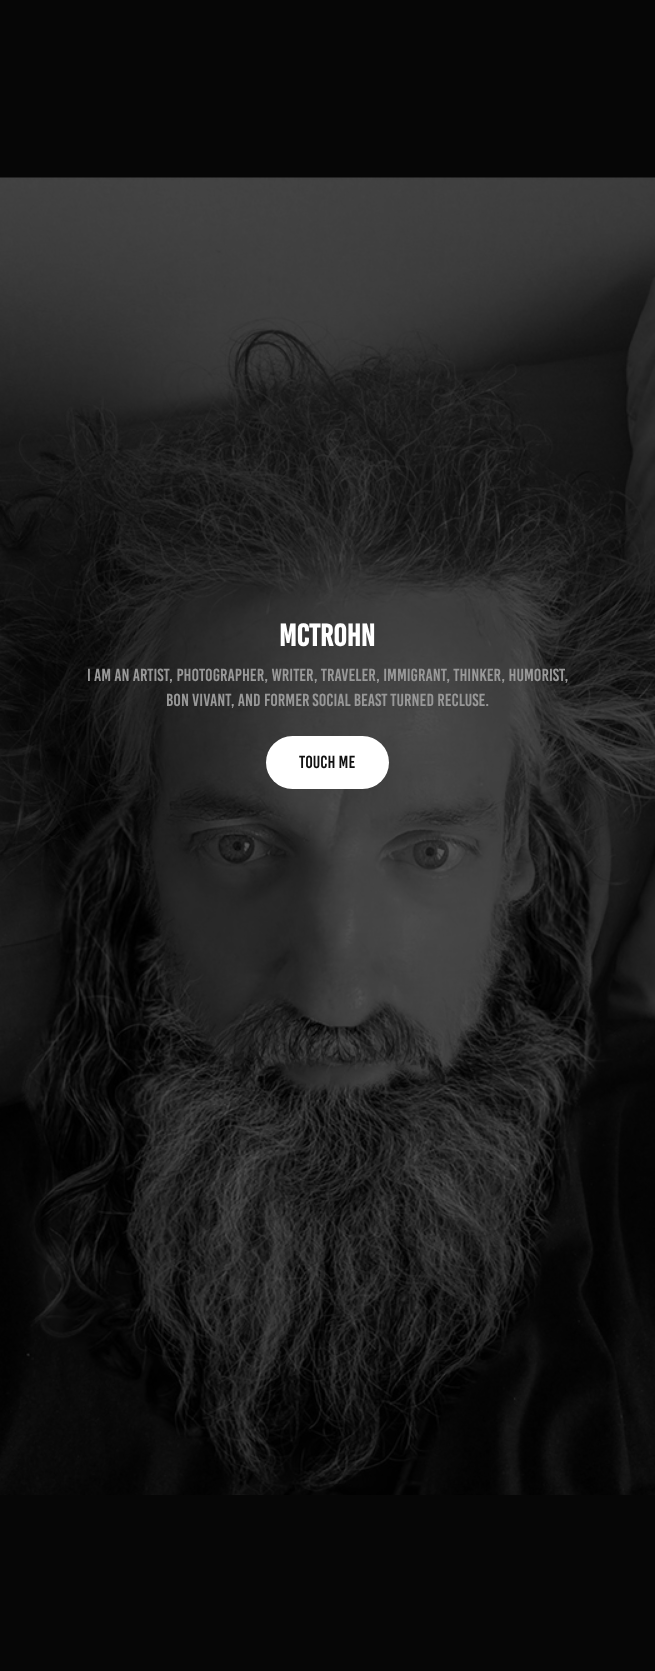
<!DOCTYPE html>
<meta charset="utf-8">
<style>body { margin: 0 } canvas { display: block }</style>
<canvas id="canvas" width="655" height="1671"></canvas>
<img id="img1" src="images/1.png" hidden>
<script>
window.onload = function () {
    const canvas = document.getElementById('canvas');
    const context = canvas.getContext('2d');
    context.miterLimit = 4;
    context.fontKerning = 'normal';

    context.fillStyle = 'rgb(6, 6, 6)';
    context.fillRect(0, 0, 655, 1671);
    context.drawImage(document.getElementById('img1'), 0, 177, 655, 1318);
    context.fillStyle = 'rgb(255, 255, 255)';
    context.beginPath();
    context.roundRect(266, 736, 123, 53, 26.5);
    context.fill();
    context.font = 'bold 31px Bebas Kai';
    context.fillText('MCTROHN', 279, 646);
    context.font = '17.5px Bebas Kai';
    context.fillStyle = 'rgb(153, 153, 153)';
    context.fillText('I am an artist, photographer, writer, traveler, immigrant, thinker, humorist,', 87, 681);
    context.fillText('bon vivant, and former social beast turned recluse.', 166, 706);
    context.fillStyle = 'rgb(17, 17, 17)';
    context.fillText('TOUCH ME', 299, 768);
};
</script>
